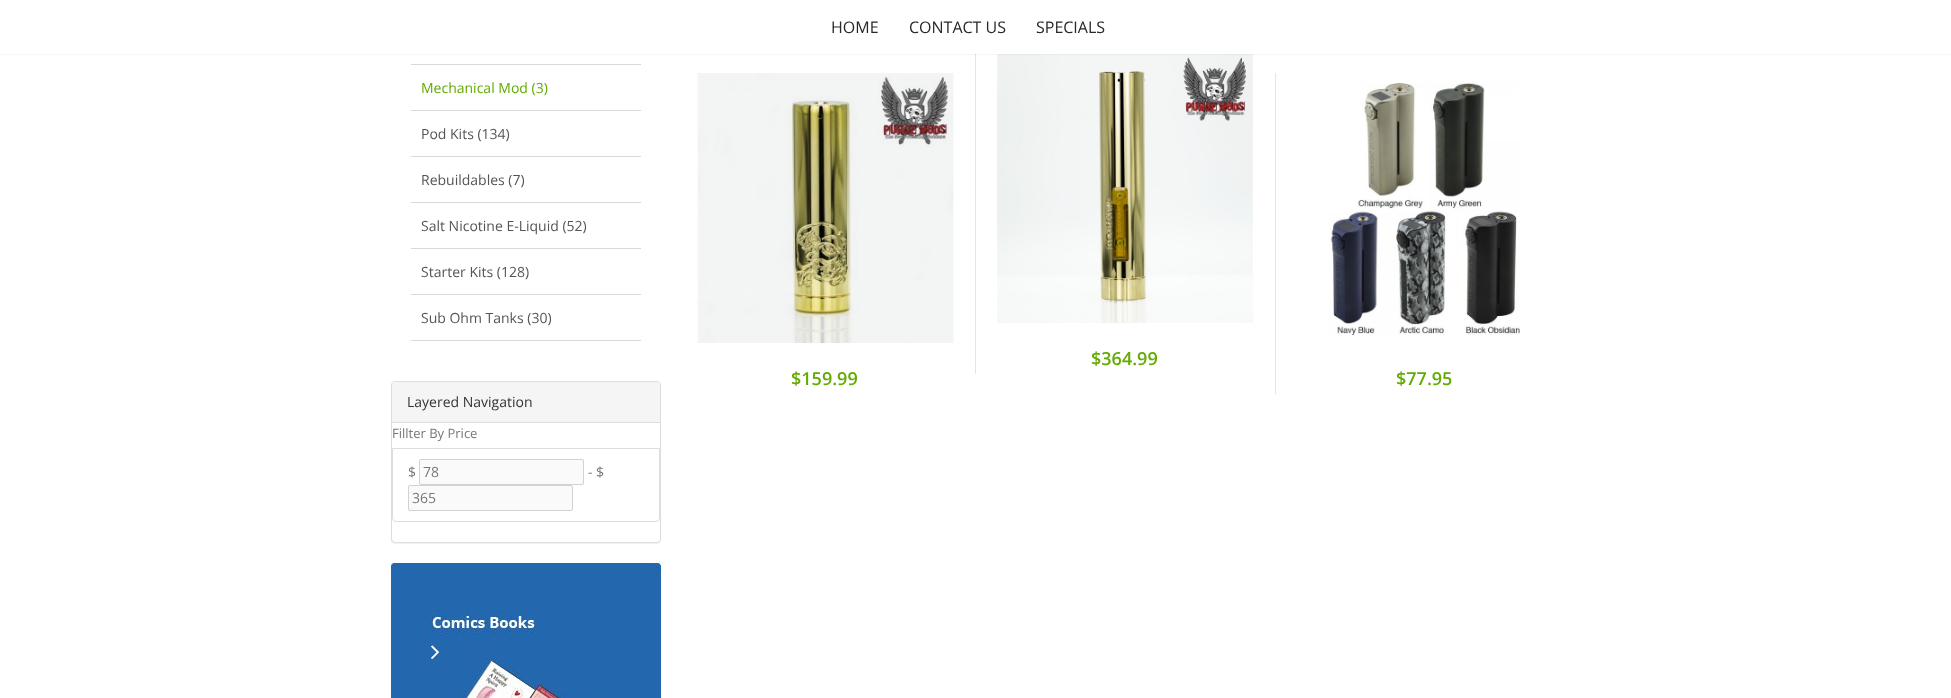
<!DOCTYPE html>
<meta charset="utf-8">
<style>body { margin: 0 } canvas { display: block }</style>
<canvas id="canvas" width="1951" height="698"></canvas>
<img id="img1" src="images/2.png" hidden>
<img id="img2" src="images/1.png" hidden>
<img id="img3" src="images/3.png" hidden>
<img id="img4" src="images/4.png" hidden>
<script>
window.onload = function () {
    const canvas = document.getElementById('canvas');
    const context = canvas.getContext('2d');
    context.miterLimit = 4;
    context.fontKerning = 'normal';

    context.fillStyle = 'rgb(255, 255, 255)';
    context.fillRect(0, 0, 1951, 698);
    context.fillStyle = 'rgb(229, 229, 229)';
    context.fillRect(975, 53, 1, 321);
    context.drawImage(document.getElementById('img1'), 997, 54, 256, 269);
    context.fillStyle = 'rgba(0, 0, 0, 0.1)';
    context.filter = 'blur(1px)';
    context.beginPath();
    context.rect(0, 0, 1951, 54);
    context.fill();
    context.filter = 'none';
    context.fillStyle = 'rgb(255, 255, 255)';
    context.fillRect(0, 0, 1951, 54);
    context.fillStyle = 'rgb(217, 217, 217)';
    context.fillRect(411, 64, 230, 1);
    context.fillRect(411, 110, 230, 1);
    context.fillRect(411, 156, 230, 1);
    context.fillRect(411, 202, 230, 1);
    context.fillRect(411, 248, 230, 1);
    context.fillRect(411, 294, 230, 1);
    context.fillRect(411, 340, 230, 1);
    context.fillStyle = 'rgba(0, 0, 0, 0.05)';
    context.filter = 'blur(0.5px)';
    context.beginPath();
    context.roundRect(391, 382, 270, 162, 4);
    context.fill();
    context.filter = 'none';
    context.fillStyle = 'rgb(255, 255, 255)';
    context.beginPath();
    context.roundRect(391.5, 381.5, 269, 161, 3.5);
    context.fill();
    context.strokeStyle = 'rgb(221, 221, 221)';
    context.stroke();
    context.fillStyle = 'rgb(245, 245, 245)';
    context.beginPath();
    context.roundRect(392, 382, 268, 41, [3, 3, 0, 0]);
    context.fill();
    context.fillStyle = 'rgb(221, 221, 221)';
    context.fillRect(392, 422, 268, 1);
    context.beginPath();
    context.roundRect(392.5, 448.5, 267, 73, [0, 0, 3.5, 3.5]);
    context.stroke();
    context.fillStyle = 'rgb(250, 250, 250)';
    context.beginPath();
    context.roundRect(419.5, 459.5, 164, 25, 1.5);
    context.fill();
    context.strokeStyle = 'rgb(210, 210, 210)';
    context.stroke();
    context.beginPath();
    context.roundRect(408.5, 485.5, 164, 25, 1.5);
    context.fill();
    context.stroke();
    context.drawImage(document.getElementById('img2'), 391, 563, 270, 135);
    context.drawImage(document.getElementById('img3'), 697, 73, 257, 270);
    context.fillStyle = 'rgb(229, 229, 229)';
    context.fillRect(1275, 73, 1, 321);
    context.drawImage(document.getElementById('img4'), 1329, 82, 191, 253);
    context.font = '16px Open Sans';
    context.fillStyle = 'rgb(40, 40, 40)';
    context.fillText('HOME', 831, 33);
    context.fillText('CONTACT US', 909, 33);
    context.fillText('SPECIALS', 1036, 33);
    context.font = '14px Open Sans';
    context.fillStyle = 'rgb(98, 171, 0)';
    context.fillText('Mechanical Mod (3)', 421, 93);
    context.fillStyle = 'rgb(85, 85, 85)';
    context.fillText('Pod Kits (134)', 421, 139);
    context.fillText('Rebuildables (7)', 421, 185);
    context.fillText('Salt Nicotine E-Liquid (52)', 421, 231);
    context.fillText('Starter Kits (128)', 421, 277);
    context.fillText('Sub Ohm Tanks (30)', 421, 323);
    context.fillStyle = 'rgb(51, 51, 51)';
    context.fillText('Layered Navigation', 407, 407);
    context.font = '13px Open Sans';
    context.fillStyle = 'rgb(119, 119, 119)';
    context.fillText('Fillter By Price', 392, 438);
    context.font = '14px Open Sans';
    context.fillText('$', 408, 477);
    context.fillText('78', 423, 477);
    context.font = 'italic 14px Open Sans';
    context.fillText('-', 588, 477);
    context.font = '14px Open Sans';
    context.fillText('$', 596, 477);
    context.fillText('365', 412, 503);
    context.font = '600 18px Open Sans';
    context.fillStyle = 'rgb(98, 171, 0)';
    context.fillText('$364.99', 1091, 365);
    context.fillText('$159.99', 791, 385);
    context.fillText('$77.95', 1396, 385);
};
</script>
